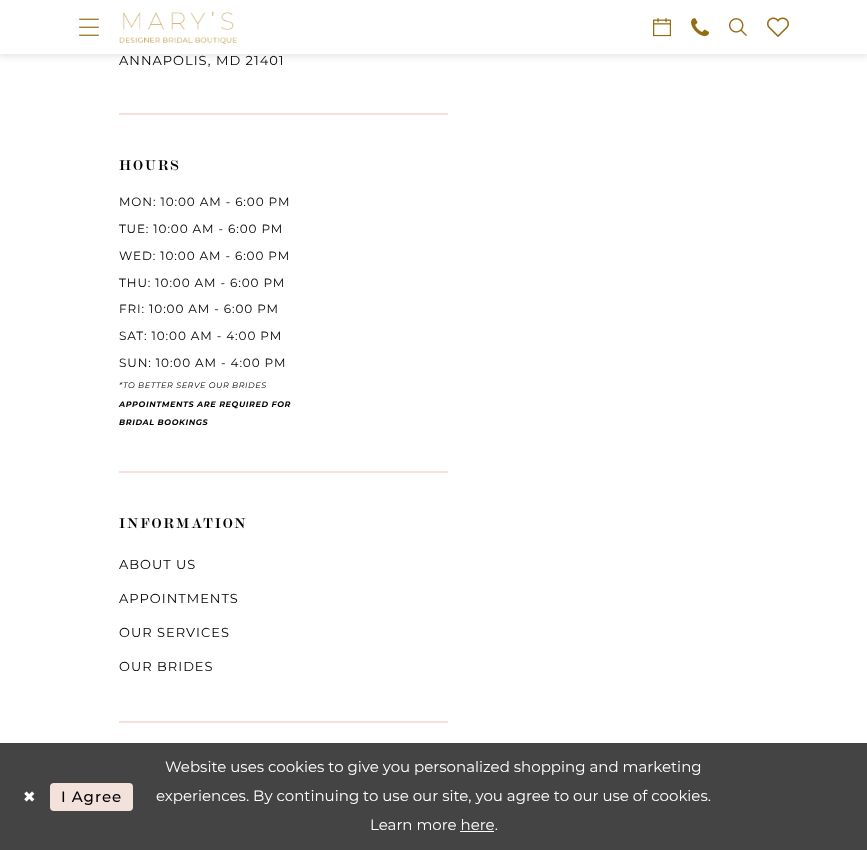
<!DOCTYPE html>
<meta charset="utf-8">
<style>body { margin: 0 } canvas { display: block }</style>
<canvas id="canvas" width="867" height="850"></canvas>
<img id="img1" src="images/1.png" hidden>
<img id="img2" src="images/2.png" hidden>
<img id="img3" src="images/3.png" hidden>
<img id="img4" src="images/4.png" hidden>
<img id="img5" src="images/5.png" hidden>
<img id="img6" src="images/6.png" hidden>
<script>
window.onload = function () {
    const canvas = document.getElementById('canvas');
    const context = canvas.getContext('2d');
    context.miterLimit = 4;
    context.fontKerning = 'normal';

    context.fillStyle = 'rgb(255, 255, 255)';
    context.fillRect(0, 0, 867, 850);
    context.fillStyle = 'rgba(30, 30, 30, 0.1)';
    context.filter = 'blur(3px)';
    context.beginPath();
    context.rect(-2, -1, 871, 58);
    context.fill();
    context.filter = 'none';
    context.fillStyle = 'rgb(255, 255, 255)';
    context.fillRect(0, 0, 867, 54);
    context.drawImage(document.getElementById('img1'), 79, 18, 20, 18);
    context.drawImage(document.getElementById('img2'), 119, 11, 118, 33);
    context.drawImage(document.getElementById('img3'), 653, 18, 18, 19);
    context.drawImage(document.getElementById('img4'), 691, 18, 18, 19);
    context.drawImage(document.getElementById('img5'), 729, 18, 18, 18);
    context.drawImage(document.getElementById('img6'), 767, 17, 22, 21);
    context.fillStyle = 'rgb(247, 224, 219)';
    context.fillRect(119, 113, 329, 2);
    context.fillRect(119, 471, 329, 2);
    context.fillRect(119, 721, 329, 2);
    context.fillStyle = 'rgb(68, 68, 68)';
    context.fillRect(0, 743, 867, 107);
    context.fillStyle = 'rgb(243, 225, 220)';
    context.beginPath();
    context.roundRect(50, 783, 83, 28, 4);
    context.fill();
    context.fillStyle = 'rgb(255, 255, 255)';
    context.fillRect(460, 831, 34, 1);
    context.letterSpacing = '1px';
    context.font = '13px Montserrat';
    context.fillStyle = 'rgb(0, 0, 0)';
    context.fillText('ANNAPOLIS, MD 21401', 119, 65);
    context.letterSpacing = '1.75px';
    context.font = 'bold 14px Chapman';
    context.fillText('HOURS', 119, 170);
    context.letterSpacing = '0.9px';
    context.font = '12px Montserrat';
    context.fillText('MON: 10:00 AM - 6:00 PM', 119, 206);
    context.fillText('TUE: 10:00 AM - 6:00 PM', 119, 233);
    context.fillText('WED: 10:00 AM - 6:00 PM', 119, 260);
    context.fillText('THU: 10:00 AM - 6:00 PM', 119, 287);
    context.fillText('FRI: 10:00 AM - 6:00 PM', 119, 313);
    context.fillText('SAT: 10:00 AM - 4:00 PM', 119, 340);
    context.fillText('SUN: 10:00 AM - 4:00 PM', 119, 367);
    context.letterSpacing = '0.6px';
    context.font = 'italic 8px Montserrat';
    context.fillText('*TO BETTER SERVE OUR BRIDES', 119, 388);
    context.font = 'italic bold 8px Montserrat';
    context.fillText('APPOINTMENTS ARE REQUIRED FOR', 119, 407);
    context.fillText('BRIDAL BOOKINGS', 119, 425);
    context.letterSpacing = '1.75px';
    context.font = 'bold 14px Chapman';
    context.fillText('INFORMATION', 119, 528);
    context.letterSpacing = '1px';
    context.font = '13px Montserrat';
    context.fillText('ABOUT US', 119, 569);
    context.fillText('APPOINTMENTS', 119, 603);
    context.fillText('OUR SERVICES', 119, 637);
    context.fillText('OUR BRIDES', 119, 671);
    context.font = '15px DejaVu Sans';
    context.fillStyle = 'rgb(255, 255, 255)';
    context.fillText('✖', 23, 802);
    context.font = '500 15px Montserrat';
    context.fillStyle = 'rgb(0, 0, 0)';
    context.fillText('I Agree', 61, 802);
    context.letterSpacing = '0px';
    context.font = '15px Montserrat';
    context.fillStyle = 'rgb(255, 255, 255)';
    context.fillText('Website uses cookies to give you personalized shopping and marketing', 165, 772);
    context.fillText('experiences. By continuing to use our site, you agree to our use of cookies.', 156, 801);
    context.fillText('Learn more here.', 370, 830);
};
</script>
